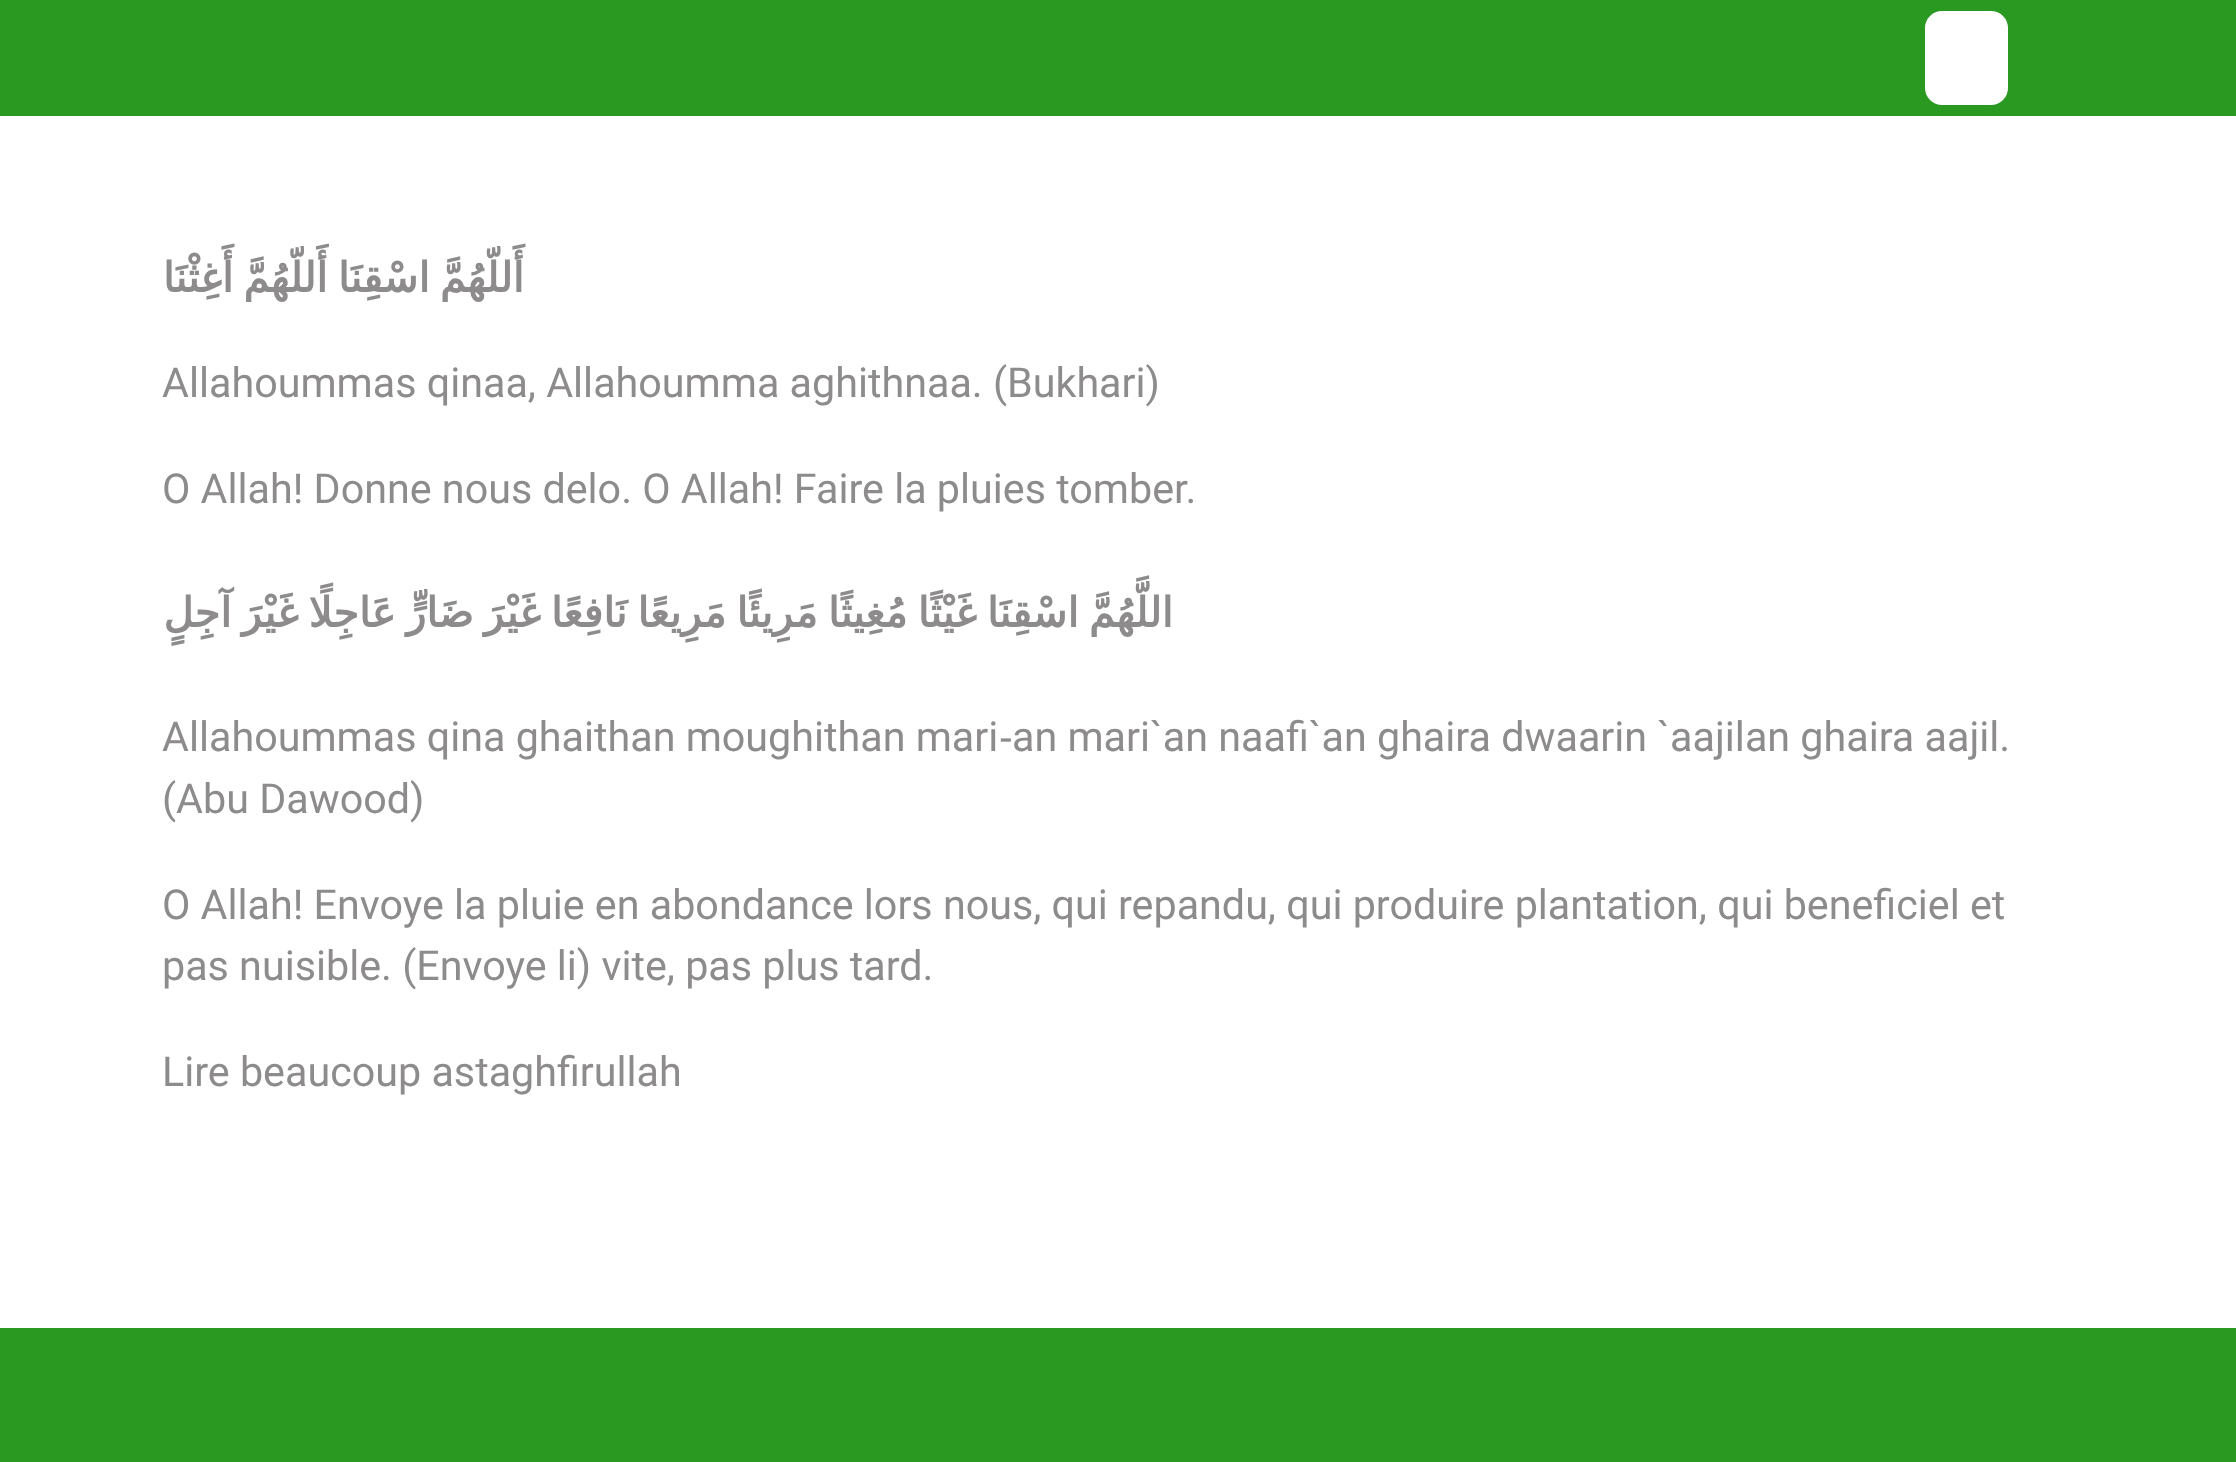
<!DOCTYPE html>
<meta charset="utf-8">
<style>body { margin: 0 } canvas { display: block }</style>
<canvas id="canvas" width="2236" height="1462"></canvas>
<script>
window.onload = function () {
    const canvas = document.getElementById('canvas');
    const context = canvas.getContext('2d');
    context.miterLimit = 4;
    context.fontKerning = 'normal';

    context.fillStyle = 'rgb(255, 255, 255)';
    context.fillRect(0, 0, 2236, 1462);
    context.fillStyle = 'rgb(41, 153, 34)';
    context.fillRect(0, 0, 2236, 116);
    context.fillStyle = 'rgb(255, 255, 255)';
    context.beginPath();
    context.roundRect(1925, 11, 83, 94, 17);
    context.fill();
    context.fillStyle = 'rgb(41, 153, 34)';
    context.fillRect(0, 1328, 2236, 134);
    context.wordSpacing = '-2.9px';
    context.direction = 'rtl';
    context.font = 'bold 41.25px DejaVu Sans';
    context.fillStyle = 'rgb(141, 139, 139)';
    context.fillText('أَللّهُمَّ اسْقِنَا أَللّهُمَّ أَغِثْنَا', 524, 292);
    context.wordSpacing = '0px';
    context.direction = 'ltr';
    context.font = '41.25px Roboto';
    context.fillText('Allahoummas qinaa, Allahoumma aghithnaa. (Bukhari)', 162, 397);
    context.fillText('O Allah! Donne nous delo. O Allah! Faire la pluies tomber.', 162, 503);
    context.wordSpacing = '-2.9px';
    context.direction = 'rtl';
    context.font = 'bold 41.25px DejaVu Sans';
    context.fillText('اللَّهُمَّ اسْقِنَا غَيْثًا مُغِيثًا مَرِيئًا مَرِيعًا نَافِعًا غَيْرَ ضَارٍّ عَاجِلًا غَيْرَ آجِلٍ', 1173, 627);
    context.wordSpacing = '0px';
    context.direction = 'ltr';
    context.font = '41.25px Roboto';
    context.fillText('Allahoummas qina ghaithan moughithan mari', 162, 751);
    context.font = '41.25px Liberation Sans';
    context.fillText('‐', 999, 751);
    context.font = '41.25px Roboto';
    context.fillText('an mari`an naafi`an ghaira dwaarin `aajilan ghaira aajil.', 1012, 751);
    context.fillText('(Abu Dawood)', 162, 813);
    context.fillText('O Allah! Envoye la pluie en abondance lors nous, qui repandu, qui produire plantation, qui beneficiel et', 162, 919);
    context.fillText('pas nuisible. (Envoye li) vite, pas plus tard.', 162, 980);
    context.fillText('Lire beaucoup astaghfirullah', 162, 1086);
};
</script>
